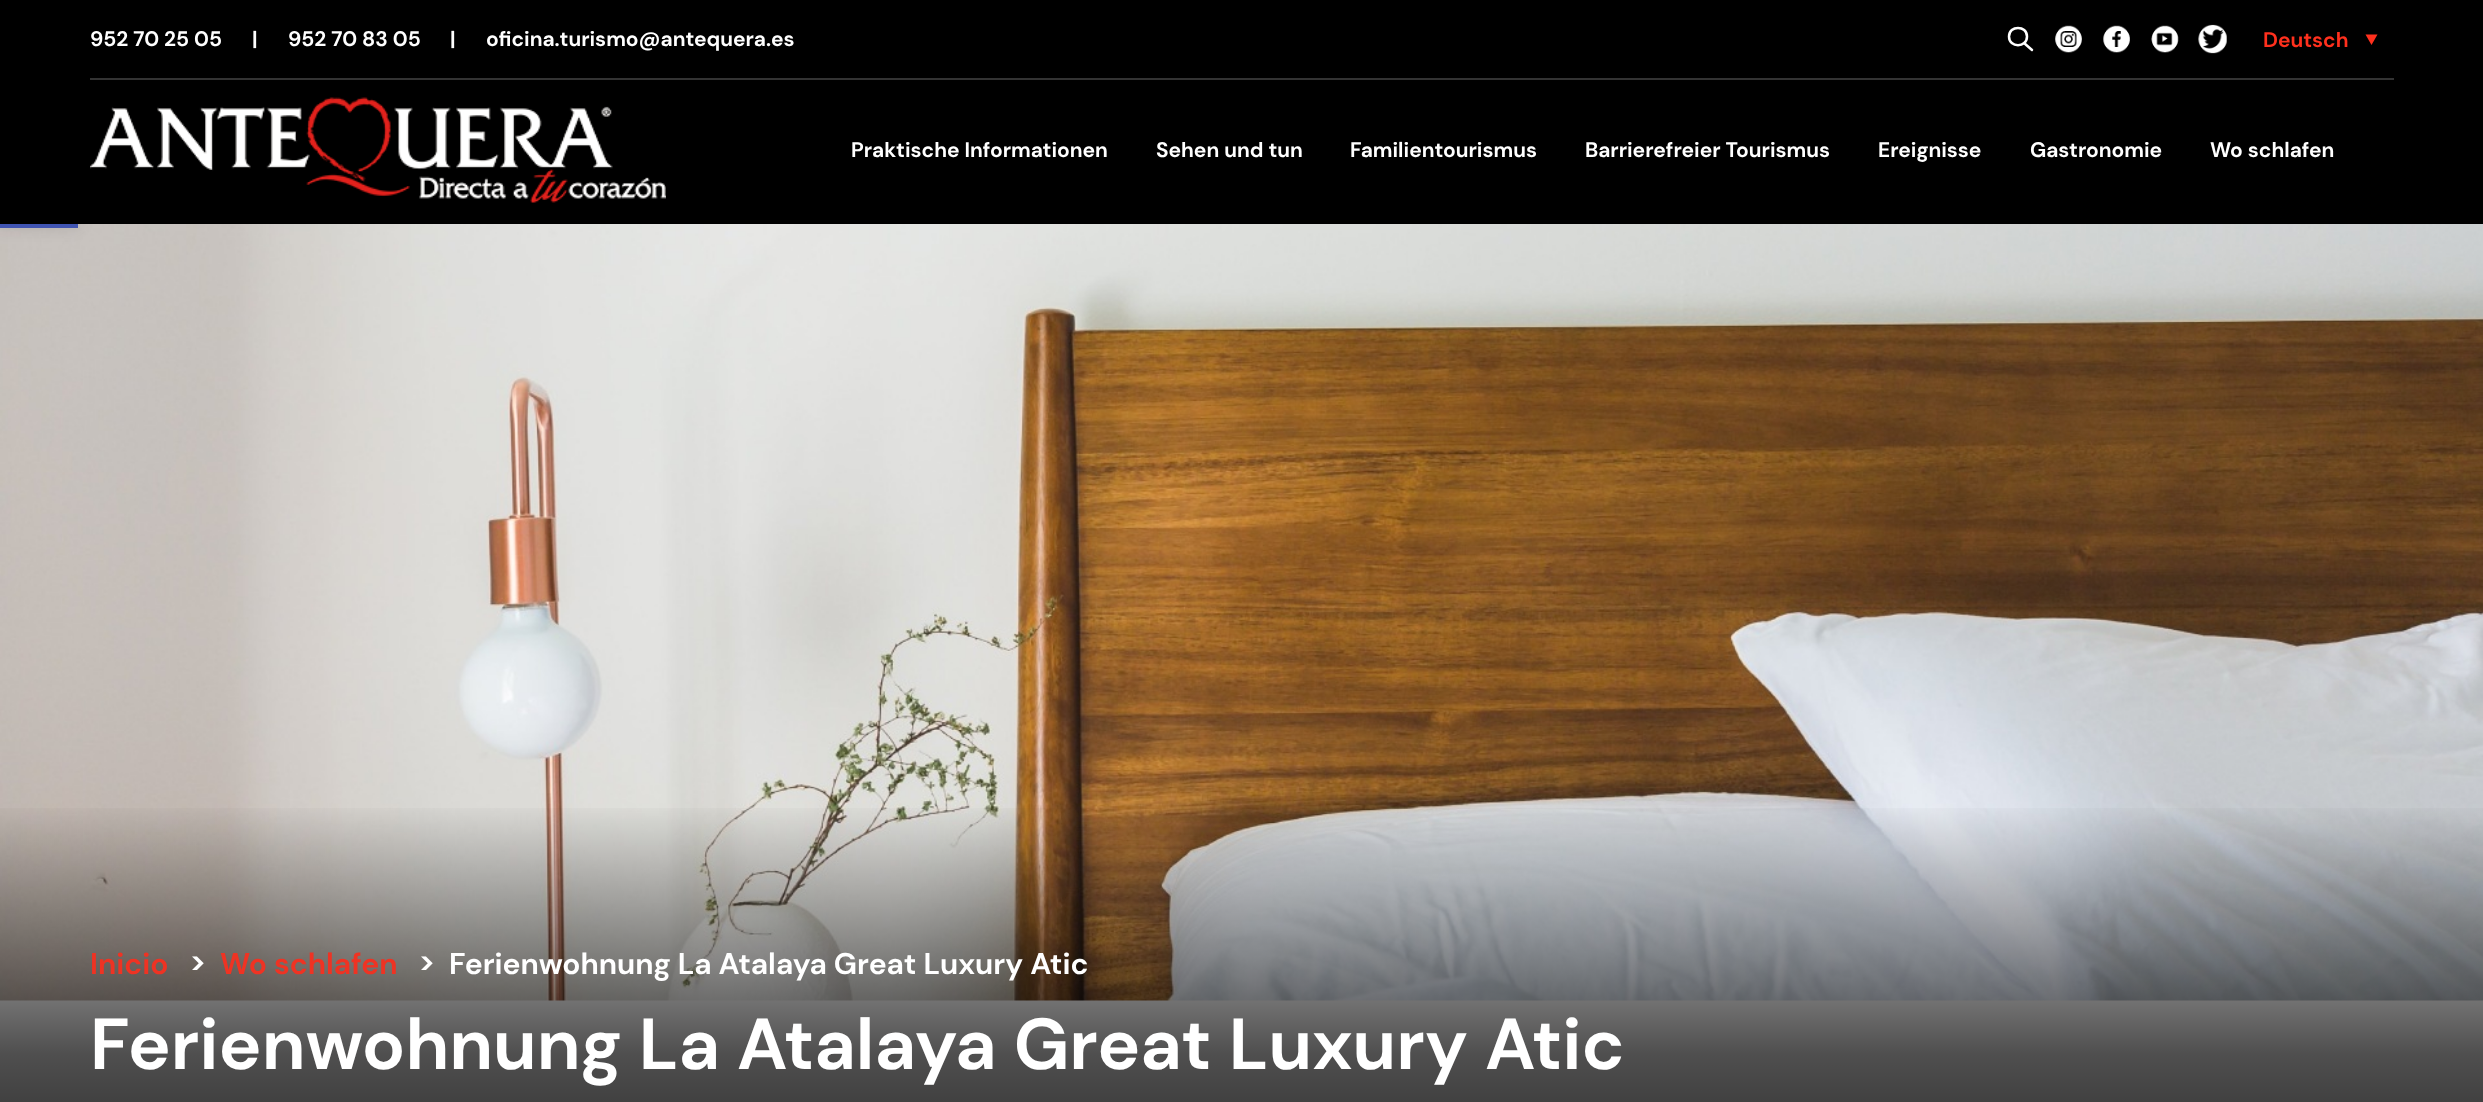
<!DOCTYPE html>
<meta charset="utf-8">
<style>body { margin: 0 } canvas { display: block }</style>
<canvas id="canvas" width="2483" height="1102"></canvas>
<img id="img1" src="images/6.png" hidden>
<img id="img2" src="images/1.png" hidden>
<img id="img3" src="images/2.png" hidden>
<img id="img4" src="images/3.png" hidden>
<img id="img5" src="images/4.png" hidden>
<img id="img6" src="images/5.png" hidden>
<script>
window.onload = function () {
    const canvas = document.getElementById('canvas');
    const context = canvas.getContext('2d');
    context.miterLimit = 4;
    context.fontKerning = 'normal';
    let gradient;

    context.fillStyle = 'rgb(246, 245, 245)';
    context.fillRect(0, 0, 2483, 1102);
    context.drawImage(document.getElementById('img1'), 0, 224, 2483, 777);
    context.fillStyle = 'rgba(0, 0, 0, 0.1)';
    context.filter = 'blur(7.5px)';
    context.beginPath();
    context.rect(0, 150, 78, 78);
    context.fill();
    context.filter = 'none';
    context.fillStyle = 'rgb(64, 84, 178)';
    context.fillRect(0, 224, 78, 4);
    context.fillStyle = 'rgb(0, 0, 0)';
    context.fillRect(0, 0, 2483, 224);
    context.fillStyle = 'rgb(51, 51, 51)';
    context.fillRect(90, 78, 2304, 2);
    context.beginPath();
    context.moveTo(2032, 50);
    context.lineTo(2024, 43);
    context.moveTo(2027, 36.5);
    context.bezierCurveTo(2027, 48, 2009, 48, 2009, 36.5);
    context.bezierCurveTo(2009, 25, 2027, 25, 2027, 36.5);
    context.closePath();
    context.strokeStyle = 'rgb(255, 255, 255)';
    context.lineWidth = 2.5;
    context.lineCap = 'round';
    context.lineJoin = 'round';
    context.stroke();
    context.drawImage(document.getElementById('img2'), 2055, 25, 27, 28);
    context.drawImage(document.getElementById('img3'), 2103, 25, 27, 28);
    context.drawImage(document.getElementById('img4'), 2151, 25, 28, 28);
    context.drawImage(document.getElementById('img5'), 2198, 24, 29, 30);
    context.fillStyle = 'rgb(255, 48, 29)';
    context.beginPath();
    context.moveTo(2365.5, 34.5);
    context.lineTo(2377.5, 34.5);
    context.lineTo(2371.5, 45);
    context.closePath();
    context.fill();
    context.drawImage(document.getElementById('img6'), 90, 97, 576, 106);
    gradient = context.createLinearGradient(1242, 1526, 1242, 800);
    gradient.addColorStop(0.28, 'rgb(0, 0, 0)');
    gradient.addColorStop(0.65, 'rgba(0, 0, 0, 0.68)');
    gradient.addColorStop(1, 'rgba(0, 0, 0, 0)');
    context.fillStyle = gradient;
    context.fillRect(0, 808, 2483, 294);
    context.font = 'bold 21px DM Sans';
    context.fillStyle = 'rgb(255, 255, 255)';
    context.fillText('952 70 25 05', 90, 46);
    context.fillText('|', 252, 46);
    context.fillText('952 70 83 05', 288, 46);
    context.fillText('|', 450, 46);
    context.fillText('oficina.turismo@antequera.es', 486, 46);
    context.fillStyle = 'rgb(255, 48, 29)';
    context.fillText('Deutsch', 2263, 47);
    context.fillStyle = 'rgb(255, 255, 255)';
    context.fillText('Praktische Informationen', 851, 157);
    context.fillText('Sehen und tun', 1156, 157);
    context.fillText('Familientourismus', 1350, 157);
    context.fillText('Barrierefreier Tourismus', 1585, 157);
    context.fillText('Ereignisse', 1878, 157);
    context.fillText('Gastronomie', 2030, 157);
    context.fillText('Wo schlafen', 2210, 157);
    context.font = 'bold 30px DM Sans';
    context.fillStyle = 'rgb(239, 51, 35)';
    context.fillText('Inicio', 90, 974);
    context.fillStyle = 'rgb(255, 255, 255)';
    context.fillText('>', 190, 974);
    context.fillStyle = 'rgb(239, 51, 35)';
    context.fillText('Wo schlafen', 220, 974);
    context.fillStyle = 'rgb(255, 255, 255)';
    context.fillText('>', 419, 974);
    context.fillText('Ferienwohnung La Atalaya Great Luxury Atic', 449, 974);
    context.font = 'bold 72px DM Sans';
    context.fillText('Ferienwohnung La Atalaya Great Luxury Atic', 90, 1069);
};
</script>
